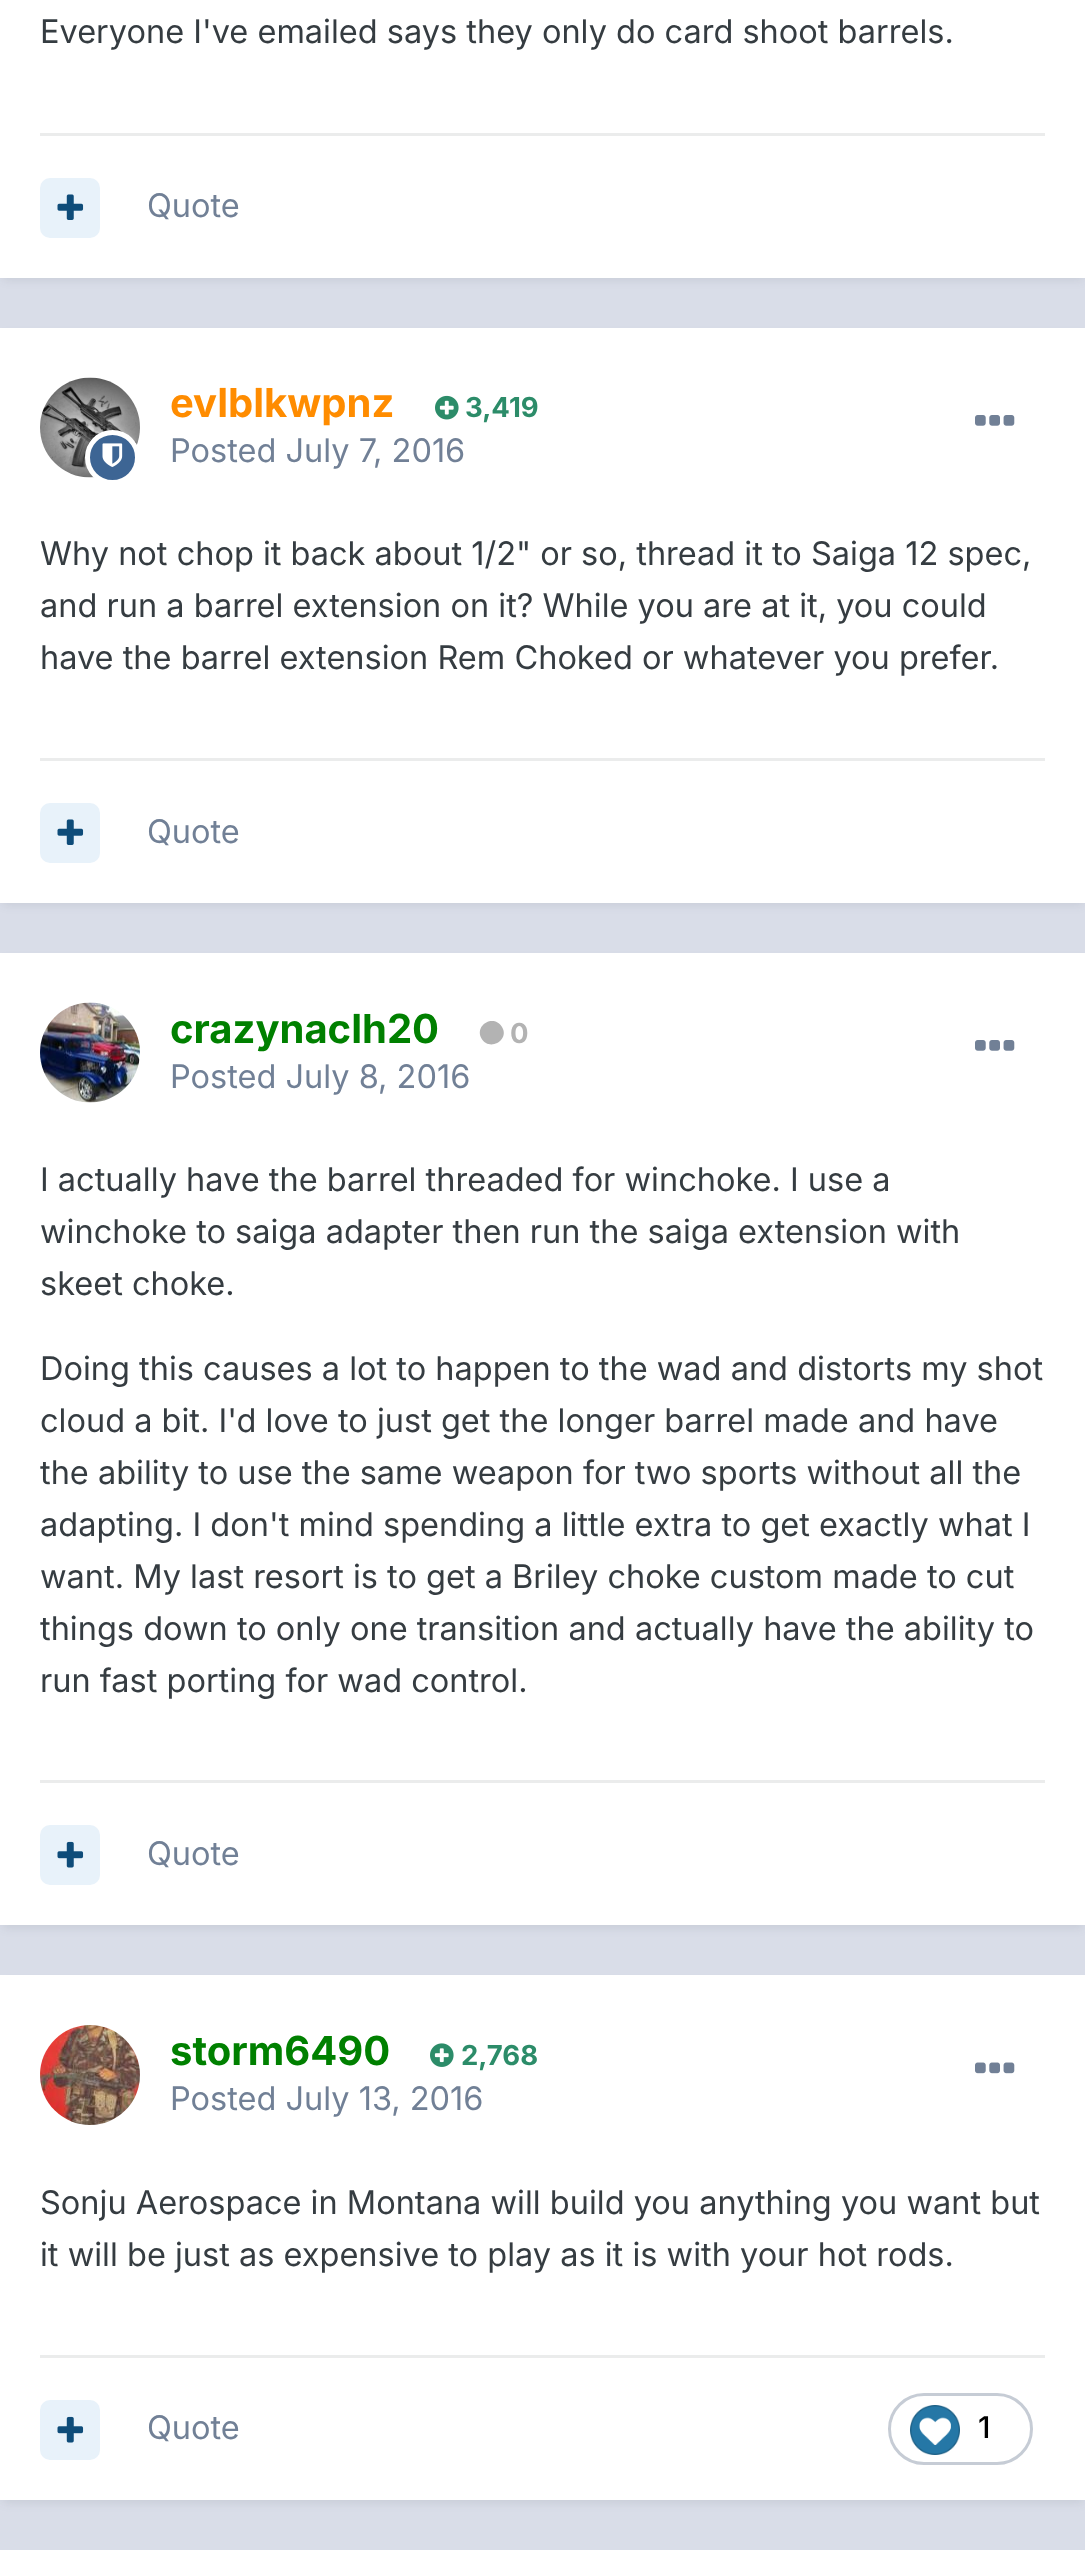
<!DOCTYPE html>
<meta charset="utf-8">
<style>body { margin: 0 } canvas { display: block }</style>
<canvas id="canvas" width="1085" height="2560"></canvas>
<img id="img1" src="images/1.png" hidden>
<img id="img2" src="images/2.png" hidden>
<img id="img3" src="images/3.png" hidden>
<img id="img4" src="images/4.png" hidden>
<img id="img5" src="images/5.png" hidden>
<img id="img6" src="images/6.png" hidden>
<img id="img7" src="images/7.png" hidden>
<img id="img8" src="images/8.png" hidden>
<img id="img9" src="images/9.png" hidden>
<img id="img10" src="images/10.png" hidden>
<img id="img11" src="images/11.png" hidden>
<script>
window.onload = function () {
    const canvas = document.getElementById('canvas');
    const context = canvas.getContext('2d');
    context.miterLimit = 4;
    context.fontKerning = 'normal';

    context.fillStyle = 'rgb(217, 221, 232)';
    context.fillRect(0, 0, 1085, 2560);
    context.fillStyle = 'rgba(45, 55, 72, 0.1)';
    context.filter = 'blur(5px)';
    context.beginPath();
    context.rect(3, -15, 1080, 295);
    context.fill();
    context.filter = 'none';
    context.fillStyle = 'rgb(255, 255, 255)';
    context.fillRect(0, 0, 1085, 278);
    context.fillStyle = 'rgb(235, 236, 236)';
    context.fillRect(40, 133, 1005, 3);
    context.fillStyle = 'rgb(232, 242, 250)';
    context.beginPath();
    context.roundRect(40, 178, 60, 60, 10);
    context.fill();
    context.drawImage(document.getElementById('img1'), 57, 194, 27, 26);
    context.fillStyle = 'rgba(45, 55, 72, 0.1)';
    context.filter = 'blur(5px)';
    context.beginPath();
    context.rect(3, 335, 1080, 570);
    context.fill();
    context.filter = 'none';
    context.fillStyle = 'rgb(255, 255, 255)';
    context.fillRect(0, 328, 1085, 575);
    context.drawImage(document.getElementById('img2'), 40, 377, 100, 101);
    context.fillStyle = 'rgb(61, 101, 148)';
    context.beginPath();
    context.arc(112.5, 457.5, 25, 0, 2 * Math.PI);
    context.fill();
    context.strokeStyle = 'rgb(255, 255, 255)';
    context.lineWidth = 5;
    context.stroke();
    context.drawImage(document.getElementById('img3'), 102, 443, 21, 24);
    context.drawImage(document.getElementById('img4'), 435, 395, 24, 25);
    context.drawImage(document.getElementById('img5'), 975, 415, 40, 11);
    context.fillStyle = 'rgb(235, 236, 236)';
    context.fillRect(40, 758, 1005, 3);
    context.fillStyle = 'rgb(232, 242, 250)';
    context.beginPath();
    context.roundRect(40, 803, 60, 60, 10);
    context.fill();
    context.drawImage(document.getElementById('img1'), 57, 819, 27, 26);
    context.fillStyle = 'rgba(45, 55, 72, 0.1)';
    context.filter = 'blur(5px)';
    context.beginPath();
    context.rect(3, 960, 1080, 968);
    context.fill();
    context.filter = 'none';
    context.fillStyle = 'rgb(255, 255, 255)';
    context.fillRect(0, 953, 1085, 972);
    context.drawImage(document.getElementById('img6'), 40, 1002, 100, 101);
    context.fillStyle = 'rgb(179, 179, 179)';
    context.beginPath();
    context.moveTo(502, 1027);
    context.bezierCurveTo(510, 1040, 489.5, 1052, 481.5, 1038.5);
    context.bezierCurveTo(474, 1025, 494, 1013.5, 502, 1027);
    context.closePath();
    context.fill();
    context.drawImage(document.getElementById('img5'), 975, 1040, 40, 11);
    context.fillStyle = 'rgb(235, 236, 236)';
    context.fillRect(40, 1780, 1005, 3);
    context.fillStyle = 'rgb(232, 242, 250)';
    context.beginPath();
    context.roundRect(40, 1825, 60, 60, 10);
    context.fill();
    context.drawImage(document.getElementById('img7'), 57, 1841, 27, 27);
    context.fillStyle = 'rgba(45, 55, 72, 0.1)';
    context.filter = 'blur(5px)';
    context.beginPath();
    context.rect(3, 1983, 1080, 520);
    context.fill();
    context.filter = 'none';
    context.fillStyle = 'rgb(255, 255, 255)';
    context.fillRect(0, 1975, 1085, 525);
    context.drawImage(document.getElementById('img8'), 40, 2025, 100, 100);
    context.drawImage(document.getElementById('img9'), 430, 2043, 24, 24);
    context.drawImage(document.getElementById('img10'), 975, 2062, 40, 12);
    context.fillStyle = 'rgb(235, 236, 236)';
    context.fillRect(40, 2355, 1005, 3);
    context.fillStyle = 'rgb(232, 242, 250)';
    context.beginPath();
    context.roundRect(40, 2400, 60, 60, 10);
    context.fill();
    context.drawImage(document.getElementById('img7'), 57, 2416, 27, 27);
    context.beginPath();
    context.roundRect(889.5, 2394.5, 142, 69, 34.5);
    context.strokeStyle = 'rgb(198, 204, 213)';
    context.lineWidth = 3;
    context.stroke();
    context.drawImage(document.getElementById('img11'), 910, 2405, 50, 50);
    context.fillStyle = 'rgb(255, 255, 255)';
    context.fillRect(0, 2550, 1085, 10);
    context.font = '32.5px Inter';
    context.fillStyle = 'rgb(53, 60, 65)';
    context.fillText('Everyone I\'ve emailed says they only do card shoot barrels.', 40, 43);
    context.fillStyle = 'rgb(113, 128, 150)';
    context.fillText('Quote', 147, 217);
    context.font = 'bold 40px Inter';
    context.fillStyle = 'rgb(255, 140, 0)';
    context.fillText('evlblkwpnz', 170, 417);
    context.font = 'bold 27.5px Inter';
    context.fillStyle = 'rgb(44, 140, 105)';
    context.fillText('3,419', 465, 417);
    context.font = '32.5px Inter';
    context.fillStyle = 'rgb(113, 128, 150)';
    context.fillText('Posted July 7, 2016', 170, 462);
    context.fillStyle = 'rgb(53, 60, 65)';
    context.fillText('Why not chop it back about 1/2" or so, thread it to Saiga 12 spec,', 40, 565);
    context.fillText('and run a barrel extension on it? While you are at it, you could', 40, 617);
    context.fillText('have the barrel extension Rem Choked or whatever you prefer.', 40, 669);
    context.fillStyle = 'rgb(113, 128, 150)';
    context.fillText('Quote', 147, 843);
    context.font = 'bold 40px Inter';
    context.fillStyle = 'rgb(0, 128, 0)';
    context.fillText('crazynaclh20', 170, 1043);
    context.font = 'bold 27.5px Inter';
    context.fillStyle = 'rgb(179, 179, 179)';
    context.fillText('0', 510, 1043);
    context.font = '32.5px Inter';
    context.fillStyle = 'rgb(113, 128, 150)';
    context.fillText('Posted July 8, 2016', 170, 1088);
    context.fillStyle = 'rgb(53, 60, 65)';
    context.fillText('I actually have the barrel threaded for winchoke. I use a', 40, 1191);
    context.fillText('winchoke to saiga adapter then run the saiga extension with', 40, 1243);
    context.fillText('skeet choke.', 40, 1295);
    context.fillText('Doing this causes a lot to happen to the wad and distorts my shot', 40, 1380);
    context.fillText('cloud a bit. I\'d love to just get the longer barrel made and have', 40, 1432);
    context.fillText('the ability to use the same weapon for two sports without all the', 40, 1484);
    context.fillText('adapting. I don\'t mind spending a little extra to get exactly what I', 40, 1536);
    context.fillText('want. My last resort is to get a Briley choke custom made to cut', 40, 1588);
    context.fillText('things down to only one transition and actually have the ability to', 40, 1640);
    context.fillText('run fast porting for wad control.', 40, 1692);
    context.fillStyle = 'rgb(113, 128, 150)';
    context.fillText('Quote', 147, 1865);
    context.font = 'bold 40px Inter';
    context.fillStyle = 'rgb(0, 128, 0)';
    context.fillText('storm6490', 170, 2065);
    context.font = 'bold 27.5px Inter';
    context.fillStyle = 'rgb(44, 140, 105)';
    context.fillText('2,768', 461, 2065);
    context.font = '32.5px Inter';
    context.fillStyle = 'rgb(113, 128, 150)';
    context.fillText('Posted July 13, 2016', 170, 2110);
    context.fillStyle = 'rgb(53, 60, 65)';
    context.fillText('Sonju Aerospace in Montana will build you anything you want but', 40, 2214);
    context.fillText('it will be just as expensive to play as it is with your hot rods.', 40, 2266);
    context.fillStyle = 'rgb(113, 128, 150)';
    context.fillText('Quote', 147, 2439);
    context.font = '500 30px Inter';
    context.fillStyle = 'rgb(0, 0, 0)';
    context.fillText('1', 978, 2438);
};
</script>
